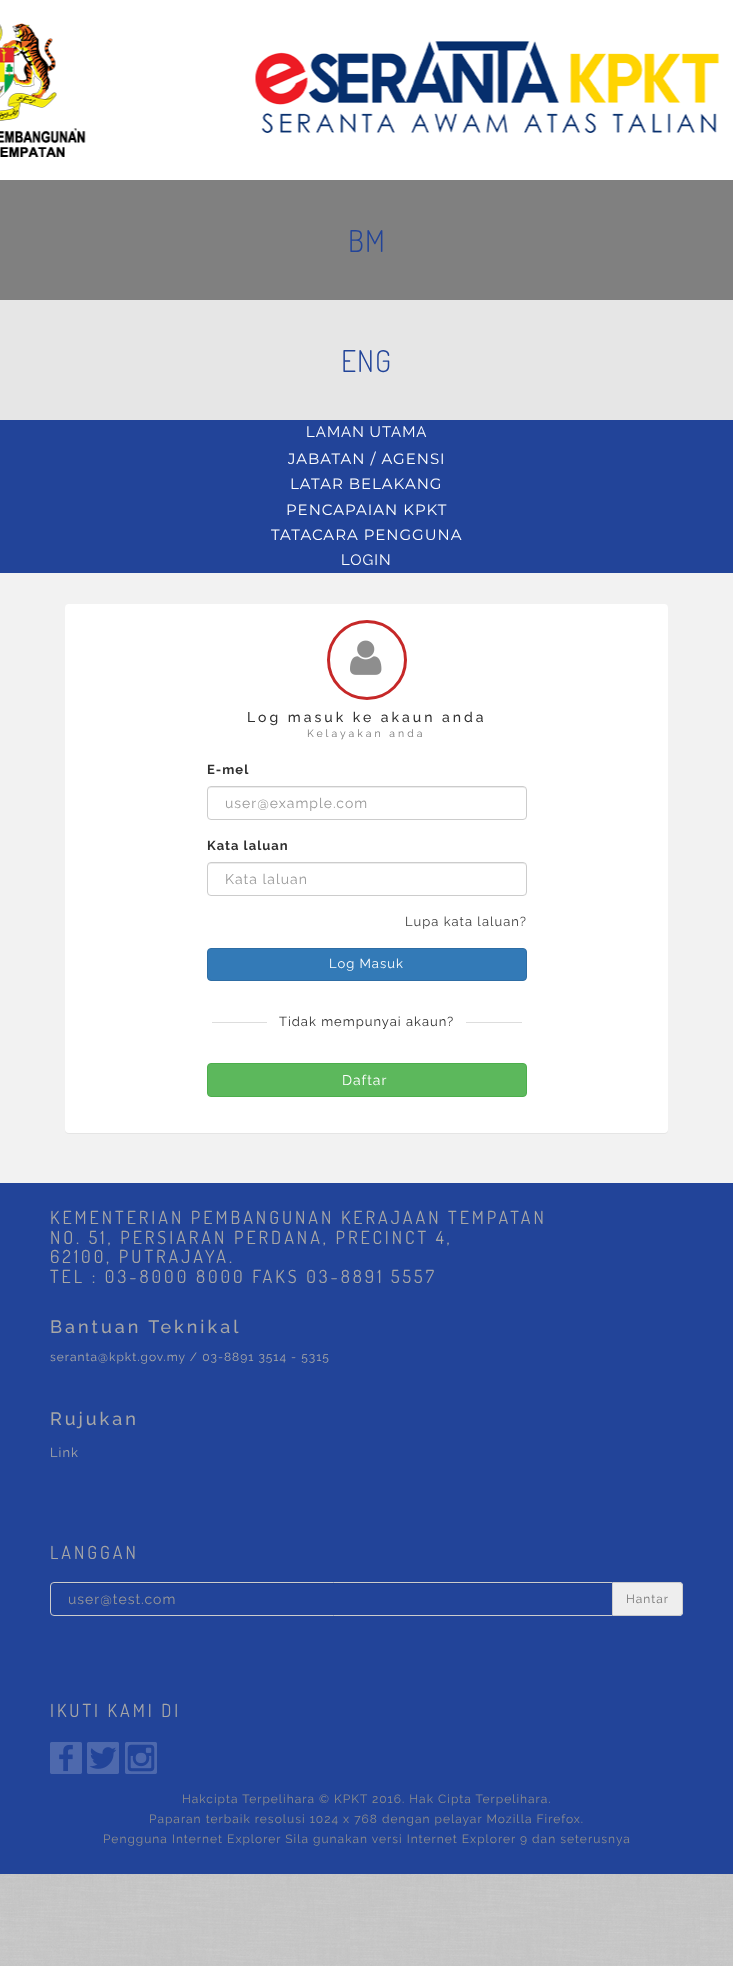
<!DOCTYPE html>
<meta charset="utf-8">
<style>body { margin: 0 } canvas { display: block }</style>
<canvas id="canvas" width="733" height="1966"></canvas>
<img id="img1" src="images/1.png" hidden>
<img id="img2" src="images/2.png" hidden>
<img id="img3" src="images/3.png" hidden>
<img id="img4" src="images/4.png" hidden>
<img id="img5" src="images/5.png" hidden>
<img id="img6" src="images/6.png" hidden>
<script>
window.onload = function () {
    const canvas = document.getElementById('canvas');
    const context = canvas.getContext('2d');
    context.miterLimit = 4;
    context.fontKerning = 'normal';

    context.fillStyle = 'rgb(255, 255, 255)';
    context.fillRect(0, 0, 733, 1966);
    context.drawImage(document.getElementById('img1'), 0, 1874, 733, 92);
    context.fillStyle = 'rgb(242, 242, 242)';
    context.fillRect(0, 573, 733, 610);
    context.drawImage(document.getElementById('img2'), 0, 23, 720, 134);
    context.fillStyle = 'rgb(128, 128, 128)';
    context.fillRect(0, 180, 733, 120);
    context.fillStyle = 'rgb(230, 230, 230)';
    context.fillRect(0, 300, 733, 120);
    context.fillStyle = 'rgb(34, 68, 153)';
    context.fillRect(0, 420, 733, 153);
    context.fillStyle = 'rgba(0, 0, 0, 0.05)';
    context.filter = 'blur(0.5px)';
    context.beginPath();
    context.roundRect(65, 605, 603, 529, 4);
    context.fill();
    context.filter = 'none';
    context.fillStyle = 'rgb(255, 255, 255)';
    context.beginPath();
    context.roundRect(65, 604, 603, 529, 4);
    context.fill();
    context.beginPath();
    context.arc(367, 660, 38.5, 0, 2 * Math.PI);
    context.strokeStyle = 'rgb(198, 40, 40)';
    context.lineWidth = 3;
    context.stroke();
    context.drawImage(document.getElementById('img3'), 350, 640, 32, 35);
    context.fillStyle = 'rgb(236, 236, 236)';
    context.beginPath();
    context.moveTo(211, 788);
    context.lineTo(523, 788);
    context.bezierCurveTo(525, 788, 526, 789, 526, 791);
    context.lineTo(525, 788);
    context.lineTo(524, 787);
    context.lineTo(211, 787);
    context.bezierCurveTo(209, 787, 208, 789, 208, 791);
    context.bezierCurveTo(208, 789, 209, 788, 211, 788);
    context.closePath();
    context.fill();
    context.beginPath();
    context.roundRect(207.5, 786.5, 319, 33, 3.5);
    context.strokeStyle = 'rgb(204, 204, 204)';
    context.lineWidth = 1;
    context.stroke();
    context.beginPath();
    context.moveTo(211, 864);
    context.lineTo(523, 864);
    context.bezierCurveTo(525, 864, 526, 865, 526, 867);
    context.lineTo(525, 864);
    context.lineTo(524, 863);
    context.lineTo(211, 863);
    context.bezierCurveTo(209, 863, 208, 865, 208, 867);
    context.bezierCurveTo(208, 865, 209, 864, 211, 864);
    context.closePath();
    context.fill();
    context.beginPath();
    context.roundRect(207.5, 862.5, 319, 33, 3.5);
    context.stroke();
    context.fillStyle = 'rgb(51, 122, 183)';
    context.beginPath();
    context.roundRect(207.5, 948.5, 319, 32, 3.5);
    context.fill();
    context.strokeStyle = 'rgb(46, 109, 164)';
    context.stroke();
    context.fillStyle = 'rgb(221, 221, 221)';
    context.fillRect(212, 1022, 310, 1);
    context.fillStyle = 'rgb(255, 255, 255)';
    context.fillRect(267, 1022, 199, 1);
    context.fillStyle = 'rgb(92, 184, 92)';
    context.beginPath();
    context.roundRect(207.5, 1063.5, 319, 33, 3.5);
    context.fill();
    context.strokeStyle = 'rgb(76, 174, 76)';
    context.stroke();
    context.fillStyle = 'rgb(34, 68, 153)';
    context.fillRect(0, 1183, 733, 691);
    context.fillStyle = 'rgb(31, 63, 142)';
    context.beginPath();
    context.moveTo(54, 1584);
    context.lineTo(612, 1584);
    context.lineTo(612, 1583);
    context.lineTo(54, 1583);
    context.bezierCurveTo(52, 1583, 51, 1584, 51, 1586);
    context.lineTo(51, 1587);
    context.bezierCurveTo(51, 1585, 52, 1584, 54, 1584);
    context.closePath();
    context.fill();
    context.beginPath();
    context.roundRect(50.5, 1582.5, 562, 33, [3.5, 0, 0, 3.5]);
    context.strokeStyle = 'rgb(204, 204, 204)';
    context.stroke();
    context.fillStyle = 'rgb(238, 238, 238)';
    context.beginPath();
    context.roundRect(613, 1582, 70, 34, [0, 4, 4, 0]);
    context.fill();
    context.fillStyle = 'rgb(204, 204, 204)';
    context.beginPath();
    context.moveTo(613, 1582);
    context.lineTo(679, 1582);
    context.bezierCurveTo(681, 1582, 683, 1584, 683, 1586);
    context.lineTo(683, 1612);
    context.bezierCurveTo(683, 1614, 681, 1616, 679, 1616);
    context.lineTo(613, 1616);
    context.closePath();
    context.moveTo(613, 1583);
    context.lineTo(679, 1583);
    context.bezierCurveTo(681, 1583, 682, 1584, 682, 1586);
    context.lineTo(682, 1612);
    context.bezierCurveTo(682, 1614, 681, 1615, 679, 1615);
    context.lineTo(613, 1615);
    context.closePath();
    context.fill('evenodd');
    context.drawImage(document.getElementById('img4'), 50, 1742, 32, 32);
    context.drawImage(document.getElementById('img5'), 87, 1742, 32, 32);
    context.drawImage(document.getElementById('img6'), 125, 1742, 32, 32);
    context.letterSpacing = '1px';
    context.font = '300 30px Dosis';
    context.fillStyle = 'rgb(34, 68, 153)';
    context.fillText('BM', 348, 252);
    context.fillText('ENG', 341, 372);
    context.font = '15px Raleway';
    context.fillStyle = 'rgb(255, 255, 255)';
    context.fillText('LAMAN UTAMA', 306, 437);
    context.font = '15px Montserrat';
    context.fillText('JABATAN / AGENSI', 288, 464);
    context.fillText('LATAR BELAKANG', 290, 489);
    context.fillText('PENCAPAIAN KPKT', 286, 515);
    context.fillText('TATACARA PENGGUNA', 271, 540);
    context.font = '15px Raleway';
    context.fillText('LOGIN', 341, 565);
    context.letterSpacing = '3px';
    context.font = '500 14px Raleway';
    context.fillStyle = 'rgb(48, 48, 48)';
    context.fillText('Log masuk ke akaun anda', 247, 722);
    context.font = '10.5px Raleway';
    context.fillStyle = 'rgb(119, 119, 119)';
    context.fillText('Kelayakan anda', 307, 737);
    context.letterSpacing = '1px';
    context.font = 'bold 13px Raleway';
    context.fillStyle = 'rgb(48, 48, 48)';
    context.fillText('E-mel', 207, 774);
    context.font = '14px Raleway';
    context.fillStyle = 'rgb(153, 153, 153)';
    context.fillText('user@example.com', 225, 808);
    context.font = 'bold 13px Raleway';
    context.fillStyle = 'rgb(48, 48, 48)';
    context.fillText('Kata laluan', 207, 850);
    context.font = '14px Raleway';
    context.fillStyle = 'rgb(153, 153, 153)';
    context.fillText('Kata laluan', 225, 884);
    context.font = '13px Raleway';
    context.fillStyle = 'rgb(64, 64, 64)';
    context.fillText('Lupa kata laluan?', 405, 926);
    context.fillStyle = 'rgb(255, 255, 255)';
    context.fillText('Log Masuk', 329, 968);
    context.fillStyle = 'rgb(48, 48, 48)';
    context.fillText('Tidak mempunyai akaun?', 279, 1026);
    context.font = '14px Raleway';
    context.fillStyle = 'rgb(255, 255, 255)';
    context.fillText('Daftar', 342, 1085);
    context.letterSpacing = '3px';
    context.font = '18px Dosis';
    context.fillStyle = 'rgb(167, 167, 167)';
    context.fillText('KEMENTERIAN PEMBANGUNAN KERAJAAN TEMPATAN', 50, 1224);
    context.fillText('NO. 51, PERSIARAN PERDANA, PRECINCT 4,', 50, 1244);
    context.fillText('62100, PUTRAJAYA.', 50, 1263);
    context.fillText('TEL : 03-8000 8000 FAKS 03-8891 5557', 50, 1283);
    context.font = '500 18px Raleway';
    context.fillText('Bantuan Teknikal', 50, 1333);
    context.letterSpacing = '1px';
    context.font = '12px Raleway';
    context.fillText('seranta@kpkt.gov.my / 03-8891 3514 - 5315', 50, 1361);
    context.letterSpacing = '3px';
    context.font = '500 18px Raleway';
    context.fillText('Rujukan', 50, 1425);
    context.letterSpacing = '1px';
    context.font = '13px Raleway';
    context.fillText('Link', 50, 1457);
    context.letterSpacing = '3px';
    context.font = '18px Dosis';
    context.fillText('LANGGAN', 50, 1559);
    context.letterSpacing = '1px';
    context.font = '14px Raleway';
    context.fillStyle = 'rgb(153, 153, 153)';
    context.fillText('user@test.com', 68, 1604);
    context.font = '12px Raleway';
    context.fillStyle = 'rgb(119, 119, 119)';
    context.fillText('Hantar', 626, 1603);
    context.letterSpacing = '3px';
    context.font = '18px Dosis';
    context.fillStyle = 'rgb(167, 167, 167)';
    context.fillText('IKUTI KAMI DI', 50, 1717);
    context.letterSpacing = '1px';
    context.font = '12px Raleway';
    context.fillStyle = 'rgb(142, 142, 142)';
    context.fillText('Hakcipta Terpelihara © KPKT 2016. Hak Cipta Terpelihara.', 182, 1803);
    context.fillText('Paparan terbaik resolusi 1024 x 768 dengan pelayar Mozilla Firefox.', 149, 1823);
    context.fillText('Pengguna Internet Explorer Sila gunakan versi Internet Explorer 9 dan seterusnya', 103, 1843);
};
</script>
